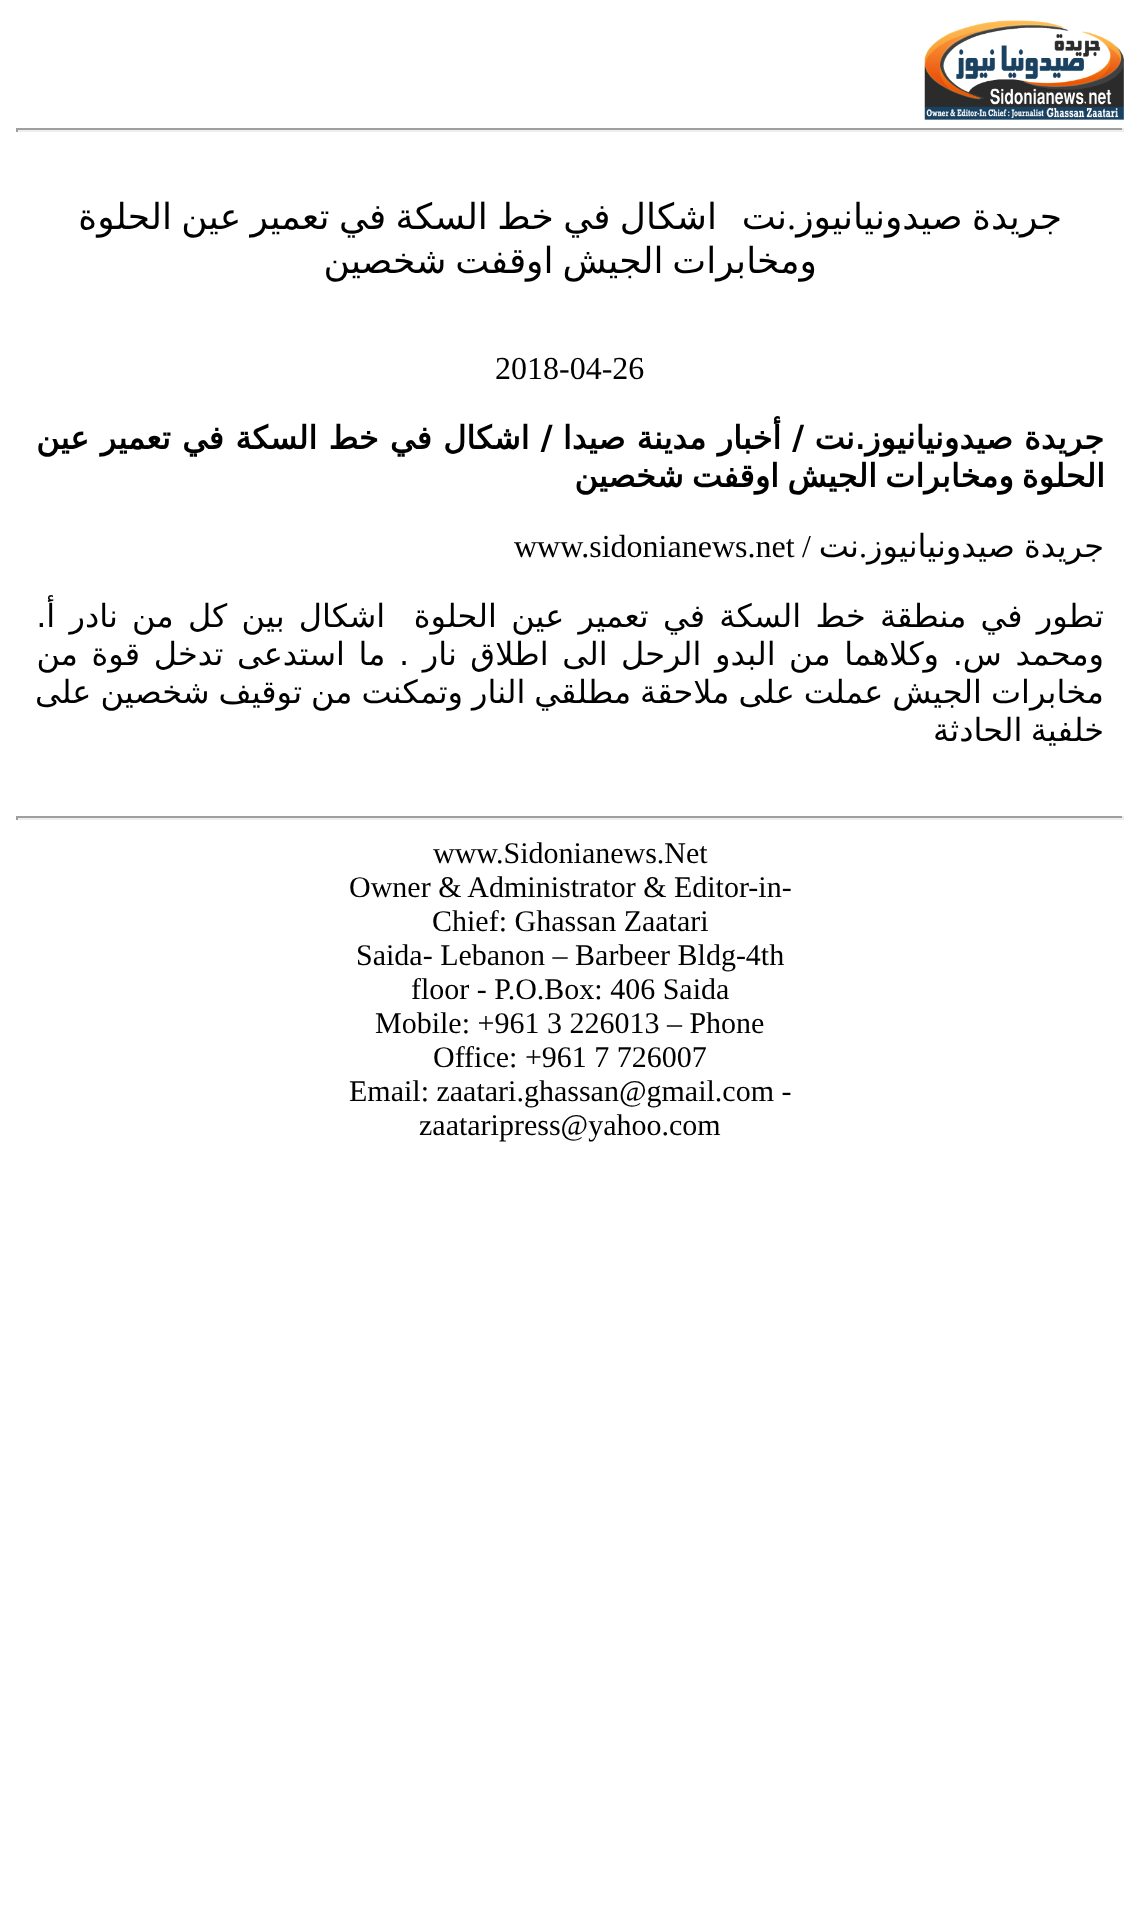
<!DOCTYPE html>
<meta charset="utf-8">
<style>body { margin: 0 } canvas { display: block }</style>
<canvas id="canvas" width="1139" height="1924"></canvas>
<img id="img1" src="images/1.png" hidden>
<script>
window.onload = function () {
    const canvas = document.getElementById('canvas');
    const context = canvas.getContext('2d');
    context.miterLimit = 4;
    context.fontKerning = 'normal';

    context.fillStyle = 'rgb(255, 255, 255)';
    context.fillRect(0, 0, 1139, 1924);
    context.drawImage(document.getElementById('img1'), 924, 20, 200, 100);
    context.fillStyle = 'rgb(159, 159, 159)';
    context.fillRect(16, 128, 1108, 2);
    context.fillStyle = 'rgb(238, 238, 238)';
    context.fillRect(1122, 128, 2, 4);
    context.fillRect(16, 130, 1108, 2);
    context.fillStyle = 'rgb(159, 159, 159)';
    context.fillRect(16, 128, 2, 4);
    context.fillRect(16, 816, 1108, 2);
    context.fillStyle = 'rgb(238, 238, 238)';
    context.fillRect(1122, 816, 2, 4);
    context.fillRect(16, 818, 1108, 2);
    context.fillStyle = 'rgb(159, 159, 159)';
    context.fillRect(16, 816, 2, 4);
    context.wordSpacing = '-2px';
    context.direction = 'rtl';
    context.font = '36px DejaVu Sans';
    context.fillStyle = 'rgb(0, 0, 0)';
    context.fillText('جريدة صيدونيانيوز', 1062, 229);
    context.wordSpacing = '0px';
    context.font = '36px Liberation Serif';
    context.fillText('.', 796, 229);
    context.font = '36px DejaVu Sans';
    context.fillText('نت', 787, 229);
    context.wordSpacing = '-2px';
    context.fillText('اشكال في خط السكة في تعمير عين الحلوة', 717, 229);
    context.wordSpacing = '-2.5px';
    context.fillText('ومخابرات الجيش اوقفت شخصين', 817, 273);
    context.wordSpacing = '0px';
    context.direction = 'ltr';
    context.font = '32px Liberation Serif';
    context.fillText('2018-04-26', 495, 379);
    context.wordSpacing = '1.1px';
    context.direction = 'rtl';
    context.font = 'bold 32px DejaVu Sans';
    context.fillText('جريدة صيدونيانيوز.نت / أخبار مدينة صيدا / اشكال في خط السكة في تعمير عين', 1104, 449);
    context.wordSpacing = '-2px';
    context.fillText('الحلوة ومخابرات الجيش اوقفت شخصين', 1105, 487);
    context.wordSpacing = '-1px';
    context.font = '32px DejaVu Sans';
    context.fillText('جريدة صيدونيانيوز', 1104, 557);
    context.wordSpacing = '0px';
    context.font = '32px Liberation Serif';
    context.fillText('.', 867, 557);
    context.font = '32px DejaVu Sans';
    context.fillText('نت', 859, 557);
    context.font = '32px Liberation Serif';
    context.fillText('/', 811, 557);
    context.direction = 'ltr';
    context.fillText('www.sidonianews.net', 514, 557);
    context.wordSpacing = '4.1px';
    context.direction = 'rtl';
    context.font = '32px DejaVu Sans';
    context.fillText('تطور في منطقة خط السكة في تعمير عين الحلوة  اشكال بين كل من نادر أ.', 1104, 627);
    context.wordSpacing = '3.4px';
    context.fillText('ومحمد س. وكلاهما من البدو الرحل الى اطلاق نار . ما استدعى تدخل قوة من', 1104, 665);
    context.wordSpacing = '-1.25px';
    context.fillText('مخابرات الجيش عملت على ملاحقة مطلقي النار وتمكنت من توقيف شخصين على', 1104, 703);
    context.wordSpacing = '-2px';
    context.fillText('خلفية الحادثة', 1104, 741);
    context.wordSpacing = '0px';
    context.direction = 'ltr';
    context.font = '30px Liberation Serif';
    context.fillText('www.Sidonianews.Net', 433, 863);
    context.fillText('Owner & Administrator & Editor-in-', 349, 897);
    context.fillText('Chief: Ghassan Zaatari', 432, 931);
    context.fillText('Saida- Lebanon – Barbeer Bldg-4th', 356, 965);
    context.fillText('floor - P.O.Box: 406 Saida', 411, 999);
    context.fillText('Mobile: +961 3 226013 – Phone', 375, 1033);
    context.fillText('Office: +961 7 726007', 433, 1067);
    context.fillText('Email: zaatari.ghassan@gmail.com -', 349, 1101);
    context.fillText('zaataripress@yahoo.com', 419, 1135);
};
</script>
